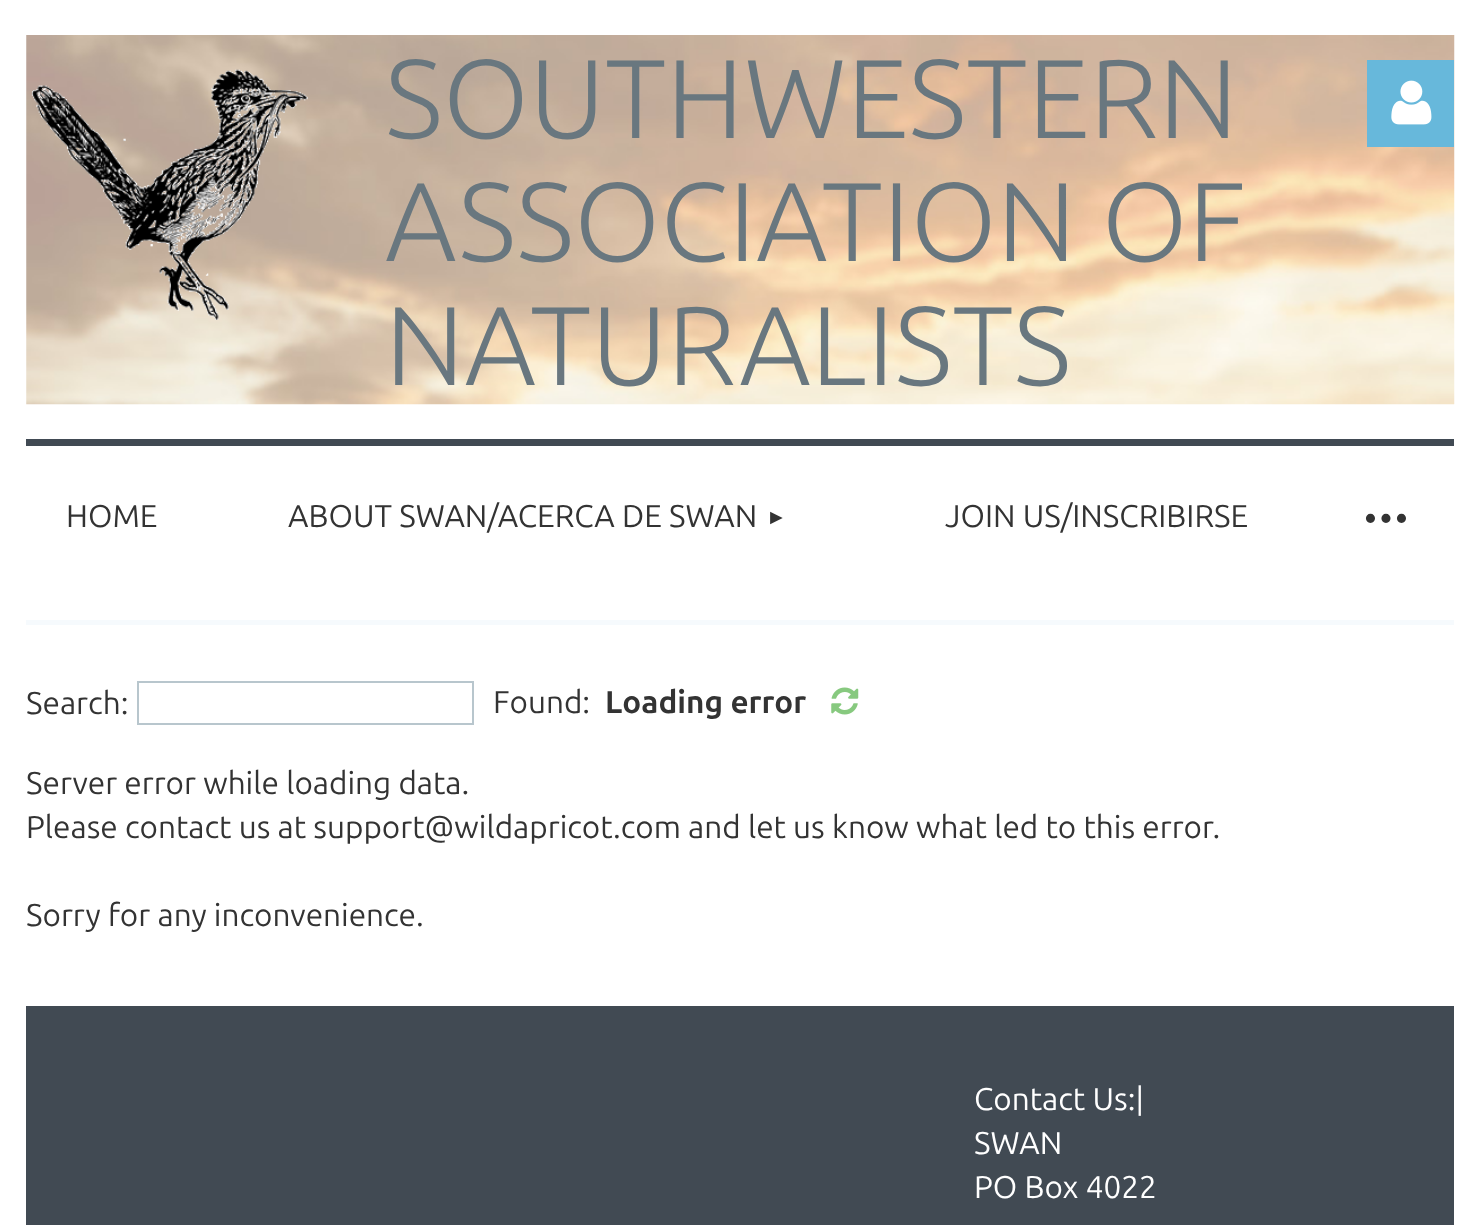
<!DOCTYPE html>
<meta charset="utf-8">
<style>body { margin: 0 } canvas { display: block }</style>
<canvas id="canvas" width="1480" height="1225"></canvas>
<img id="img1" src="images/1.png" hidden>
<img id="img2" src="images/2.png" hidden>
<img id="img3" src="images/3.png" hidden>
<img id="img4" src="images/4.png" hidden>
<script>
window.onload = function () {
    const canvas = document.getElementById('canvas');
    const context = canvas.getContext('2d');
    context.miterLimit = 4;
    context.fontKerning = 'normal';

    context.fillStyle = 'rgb(255, 255, 255)';
    context.fillRect(0, 0, 1480, 1225);
    context.drawImage(document.getElementById('img1'), 26, 35, 1429, 370);
    context.drawImage(document.getElementById('img2'), 31, 69, 277, 251);
    context.fillStyle = 'rgb(103, 184, 219)';
    context.fillRect(1367, 60, 87, 87);
    context.drawImage(document.getElementById('img3'), 1391, 80, 41, 45);
    context.fillStyle = 'rgb(65, 74, 83)';
    context.fillRect(26, 439, 1428, 7);
    context.fillStyle = 'rgb(246, 250, 253)';
    context.fillRect(26, 620, 1428, 5);
    context.strokeStyle = 'rgb(184, 198, 205)';
    context.lineWidth = 2;
    context.strokeRect(138, 682, 335, 42);
    context.drawImage(document.getElementById('img4'), 831, 687, 28, 28);
    context.fillStyle = 'rgb(65, 74, 83)';
    context.fillRect(26, 1006, 1428, 219);
    context.font = '300 112px Ubuntu';
    context.fillStyle = 'rgb(105, 119, 127)';
    context.fillText('SOUTHWESTERN', 385, 138);
    context.fillText('ASSOCIATION OF', 385, 261);
    context.fillText('NATURALISTS', 385, 385);
    context.font = '31.5px Ubuntu';
    context.fillStyle = 'rgb(51, 51, 51)';
    context.fillText('HOME', 66, 527);
    context.fillText('ABOUT SWAN/ACERCA DE SWAN', 288, 527);
    context.font = '21px Liberation Sans';
    context.fillText('►', 766, 524);
    context.font = '31.5px Ubuntu';
    context.fillText('JOIN US/INSCRIBIRSE', 945, 527);
    context.letterSpacing = '-3.5px';
    context.font = '77px Ubuntu';
    context.fillText('···', 1361, 541);
    context.letterSpacing = '0px';
    context.font = '31.5px Ubuntu';
    context.fillText('Search:', 26, 714);
    context.fillText('Found:', 493, 713);
    context.font = 'bold 31.5px Ubuntu';
    context.fillText('Loading error', 605, 713);
    context.font = '31.5px Ubuntu';
    context.fillText('Server error while loading data.', 26, 794);
    context.fillText('Please contact us at support@wildapricot.com and let us know what led to this error.', 26, 838);
    context.fillText('Sorry for any inconvenience.', 26, 926);
    context.fillStyle = 'rgb(255, 255, 255)';
    context.fillText('Contact Us:|', 974, 1110);
    context.fillText('SWAN', 974, 1154);
    context.fillText('PO Box 4022', 974, 1198);
};
</script>
